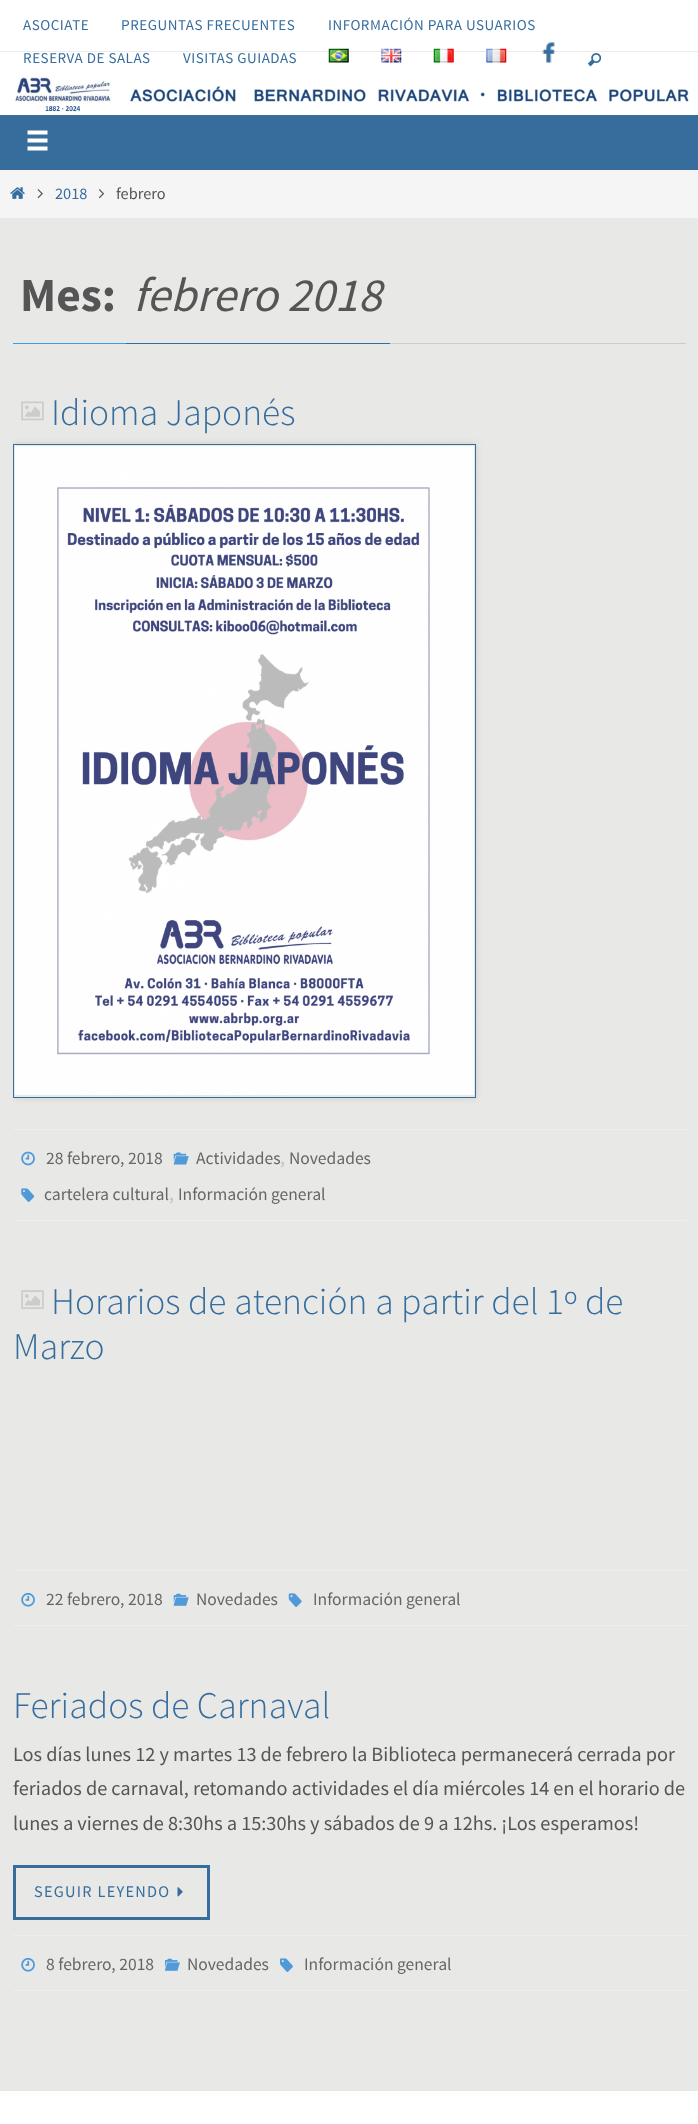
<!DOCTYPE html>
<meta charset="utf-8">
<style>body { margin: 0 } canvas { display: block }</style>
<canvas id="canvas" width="698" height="2124"></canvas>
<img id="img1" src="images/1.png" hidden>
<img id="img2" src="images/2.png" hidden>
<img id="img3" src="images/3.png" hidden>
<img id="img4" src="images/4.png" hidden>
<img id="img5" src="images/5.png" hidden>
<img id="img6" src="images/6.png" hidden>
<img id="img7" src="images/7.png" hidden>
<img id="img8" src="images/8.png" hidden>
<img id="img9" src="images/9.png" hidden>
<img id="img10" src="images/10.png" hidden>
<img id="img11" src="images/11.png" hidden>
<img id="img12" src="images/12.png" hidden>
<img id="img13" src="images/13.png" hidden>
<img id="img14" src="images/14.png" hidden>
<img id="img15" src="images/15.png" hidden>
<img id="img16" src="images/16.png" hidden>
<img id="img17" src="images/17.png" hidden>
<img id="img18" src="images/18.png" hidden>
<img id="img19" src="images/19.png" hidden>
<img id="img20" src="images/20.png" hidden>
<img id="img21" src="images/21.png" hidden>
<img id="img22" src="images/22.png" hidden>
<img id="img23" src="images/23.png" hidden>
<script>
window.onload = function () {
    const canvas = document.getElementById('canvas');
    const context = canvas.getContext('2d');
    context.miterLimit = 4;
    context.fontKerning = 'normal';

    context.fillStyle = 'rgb(255, 255, 255)';
    context.fillRect(0, 0, 698, 2124);
    context.fillStyle = 'rgb(235, 235, 235)';
    context.fillRect(0, 51, 698, 1);
    context.drawImage(document.getElementById('img1'), 328, 48, 21, 15);
    context.drawImage(document.getElementById('img2'), 381, 48, 21, 15);
    context.drawImage(document.getElementById('img3'), 433, 48, 21, 15);
    context.drawImage(document.getElementById('img4'), 486, 48, 21, 15);
    context.drawImage(document.getElementById('img5'), 542, 42, 14, 21);
    context.drawImage(document.getElementById('img6'), 587, 53, 15, 14);
    context.drawImage(document.getElementById('img7'), 13, 76, 676, 36);
    context.fillStyle = 'rgb(54, 109, 157)';
    context.fillRect(0, 115, 698, 55);
    context.drawImage(document.getElementById('img8'), 27, 130, 21, 21);
    context.fillStyle = 'rgb(245, 245, 245)';
    context.fillRect(0, 170, 698, 48);
    context.drawImage(document.getElementById('img9'), 10, 187, 15, 12);
    context.drawImage(document.getElementById('img10'), 37, 189, 6, 10);
    context.drawImage(document.getElementById('img11'), 98, 189, 7, 10);
    context.fillStyle = 'rgb(232, 232, 231)';
    context.fillRect(0, 218, 698, 1873);
    context.fillStyle = 'rgb(204, 204, 204)';
    context.fillRect(390, 343, 296, 1);
    context.fillStyle = 'rgb(60, 155, 237)';
    context.fillRect(13, 343, 113, 1);
    context.fillStyle = 'rgb(54, 109, 157)';
    context.fillRect(126, 343, 264, 1);
    context.drawImage(document.getElementById('img12'), 21, 401, 23, 20);
    context.save();
    context.beginPath();
    context.rect(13, 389, 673, 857);
    context.clip();
    context.beginPath();
    context.moveTo(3, 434);
    context.lineTo(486, 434);
    context.lineTo(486, 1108);
    context.lineTo(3, 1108);
    context.closePath();
    context.moveTo(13, 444);
    context.lineTo(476, 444);
    context.lineTo(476, 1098);
    context.lineTo(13, 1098);
    context.closePath();
    context.clip('evenodd');
    context.fillStyle = 'rgb(204, 204, 204)';
    context.filter = 'blur(3px)';
    context.beginPath();
    context.rect(13, 444, 463, 654);
    context.fill();
    context.filter = 'none';
    context.restore();
    context.strokeStyle = 'rgb(56, 110, 158)';
    context.strokeRect(13.5, 444.5, 462, 653);
    context.drawImage(document.getElementById('img13'), 15, 446, 459, 649);
    context.fillStyle = 'rgb(238, 238, 238)';
    context.fillRect(13, 1129, 673, 1);
    context.fillRect(13, 1220, 673, 1);
    context.drawImage(document.getElementById('img14'), 21, 1151, 14, 15);
    context.drawImage(document.getElementById('img15'), 173, 1152, 16, 13);
    context.drawImage(document.getElementById('img16'), 21, 1188, 14, 14);
    context.drawImage(document.getElementById('img17'), 21, 1290, 23, 19);
    context.fillRect(13, 1570, 673, 1);
    context.fillRect(13, 1625, 673, 1);
    context.drawImage(document.getElementById('img18'), 21, 1592, 14, 15);
    context.drawImage(document.getElementById('img19'), 173, 1593, 16, 13);
    context.drawImage(document.getElementById('img20'), 288, 1593, 14, 14);
    context.strokeStyle = 'rgb(54, 109, 157)';
    context.lineWidth = 3;
    context.strokeRect(14.5, 1866.5, 194, 52);
    context.drawImage(document.getElementById('img21'), 177, 1887, 6, 10);
    context.fillRect(13, 1935, 673, 1);
    context.fillRect(13, 1990, 673, 1);
    context.drawImage(document.getElementById('img18'), 21, 1957, 14, 15);
    context.drawImage(document.getElementById('img22'), 165, 1958, 15, 13);
    context.drawImage(document.getElementById('img23'), 280, 1958, 13, 14);
    context.letterSpacing = '0.5px';
    context.font = '15px Source Sans Pro';
    context.fillStyle = 'rgb(54, 109, 157)';
    context.fillText('ASOCIATE', 23, 30);
    context.fillText('PREGUNTAS FRECUENTES', 121, 30);
    context.fillText('INFORMACIÓN PARA USUARIOS', 328, 30);
    context.fillText('RESERVA DE SALAS', 23, 63);
    context.fillText('VISITAS GUIADAS', 183, 63);
    context.letterSpacing = '0px';
    context.font = '16.25px Source Sans Pro';
    context.fillText('2018', 55, 199);
    context.fillStyle = 'rgb(85, 85, 85)';
    context.fillText('febrero', 116, 199);
    context.font = 'bold 47.5px Source Sans Pro';
    context.fillText('Mes:', 20, 311);
    context.font = 'italic 47.5px Source Sans Pro';
    context.fillText('febrero 2018', 133, 311);
    context.font = '300 37.5px Source Sans Pro';
    context.fillStyle = 'rgb(54, 109, 157)';
    context.fillText('Idioma Japonés', 51, 425);
    context.font = '17.5px Source Sans Pro';
    context.fillStyle = 'rgb(102, 102, 102)';
    context.fillText('28 febrero, 2018', 46, 1164);
    context.fillText('Actividades', 196, 1164);
    context.font = '20px Source Sans Pro';
    context.fillStyle = 'rgb(193, 193, 193)';
    context.fillText(',', 280, 1164);
    context.font = '17.5px Source Sans Pro';
    context.fillStyle = 'rgb(102, 102, 102)';
    context.fillText('Novedades', 289, 1164);
    context.fillText('cartelera cultural', 44, 1200);
    context.font = '20px Source Sans Pro';
    context.fillStyle = 'rgb(193, 193, 193)';
    context.fillText(',', 169, 1200);
    context.font = '17.5px Source Sans Pro';
    context.fillStyle = 'rgb(102, 102, 102)';
    context.fillText('Información general', 178, 1200);
    context.font = '300 37.5px Source Sans Pro';
    context.fillStyle = 'rgb(54, 109, 157)';
    context.fillText('Horarios de atención a partir del 1º de', 51, 1314);
    context.fillText('Marzo', 13, 1359);
    context.font = '17.5px Source Sans Pro';
    context.fillStyle = 'rgb(102, 102, 102)';
    context.fillText('22 febrero, 2018', 46, 1605);
    context.fillText('Novedades', 196, 1605);
    context.fillText('Información general', 313, 1605);
    context.font = '300 37.5px Source Sans Pro';
    context.fillStyle = 'rgb(54, 109, 157)';
    context.fillText('Feriados de Carnaval', 13, 1718);
    context.font = '20.25px Source Sans Pro';
    context.fillStyle = 'rgb(85, 85, 85)';
    context.fillText('Los días lunes 12 y martes 13 de febrero la Biblioteca permanecerá cerrada por', 13, 1761);
    context.fillText('feriados de carnaval, retomando actividades el día miércoles 14 en el horario de', 13, 1795);
    context.fillText('lunes a viernes de 8:30hs a 15:30hs y sábados de 9 a 12hs. ¡Los esperamos!', 13, 1830);
    context.letterSpacing = '1.25px';
    context.font = '16.25px Source Sans Pro';
    context.fillStyle = 'rgb(54, 109, 157)';
    context.fillText('SEGUIR LEYENDO', 34, 1897);
    context.letterSpacing = '0px';
    context.font = '17.5px Source Sans Pro';
    context.fillStyle = 'rgb(102, 102, 102)';
    context.fillText('8 febrero, 2018', 46, 1970);
    context.fillText('Novedades', 187, 1970);
    context.fillText('Información general', 304, 1970);
};
</script>
